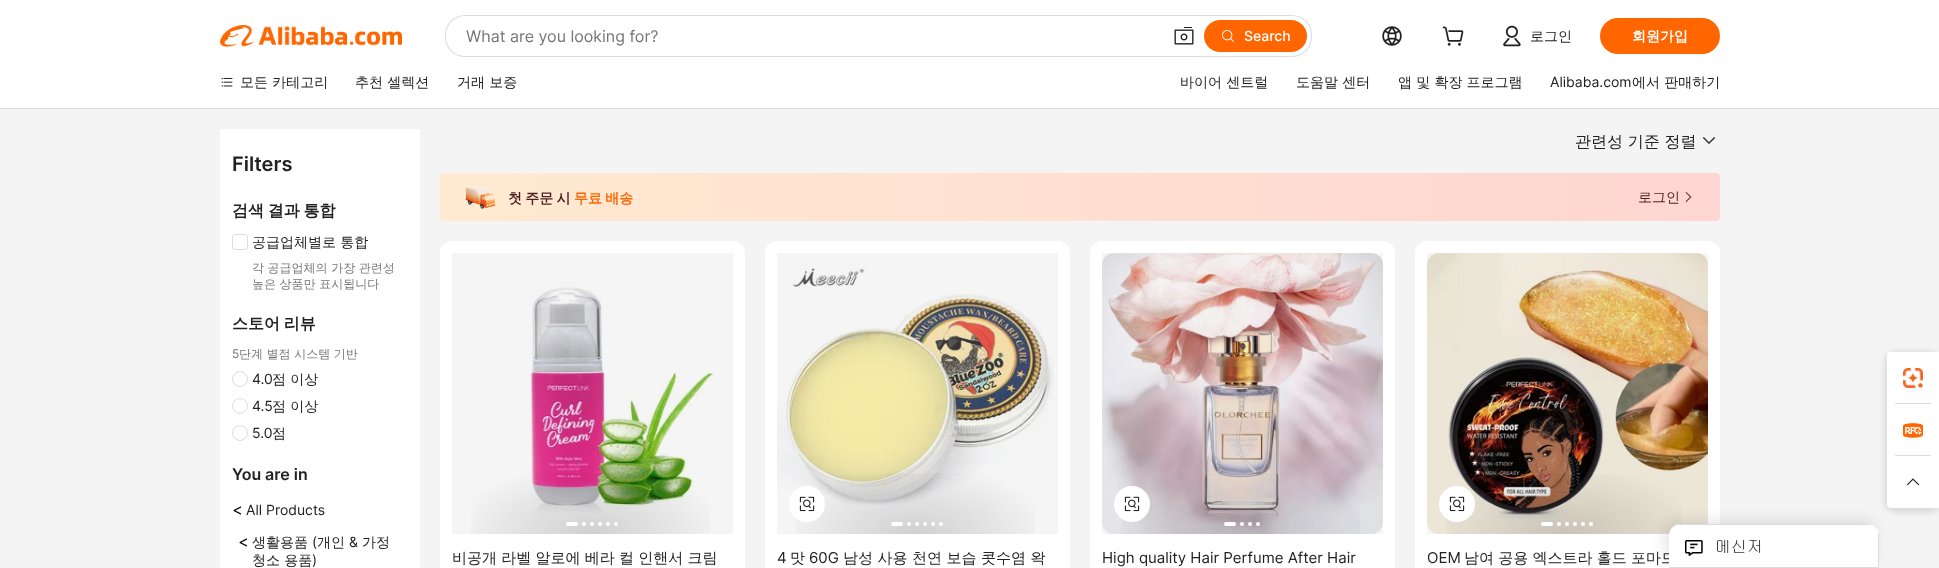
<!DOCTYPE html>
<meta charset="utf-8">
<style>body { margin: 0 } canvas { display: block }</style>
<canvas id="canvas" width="1939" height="568"></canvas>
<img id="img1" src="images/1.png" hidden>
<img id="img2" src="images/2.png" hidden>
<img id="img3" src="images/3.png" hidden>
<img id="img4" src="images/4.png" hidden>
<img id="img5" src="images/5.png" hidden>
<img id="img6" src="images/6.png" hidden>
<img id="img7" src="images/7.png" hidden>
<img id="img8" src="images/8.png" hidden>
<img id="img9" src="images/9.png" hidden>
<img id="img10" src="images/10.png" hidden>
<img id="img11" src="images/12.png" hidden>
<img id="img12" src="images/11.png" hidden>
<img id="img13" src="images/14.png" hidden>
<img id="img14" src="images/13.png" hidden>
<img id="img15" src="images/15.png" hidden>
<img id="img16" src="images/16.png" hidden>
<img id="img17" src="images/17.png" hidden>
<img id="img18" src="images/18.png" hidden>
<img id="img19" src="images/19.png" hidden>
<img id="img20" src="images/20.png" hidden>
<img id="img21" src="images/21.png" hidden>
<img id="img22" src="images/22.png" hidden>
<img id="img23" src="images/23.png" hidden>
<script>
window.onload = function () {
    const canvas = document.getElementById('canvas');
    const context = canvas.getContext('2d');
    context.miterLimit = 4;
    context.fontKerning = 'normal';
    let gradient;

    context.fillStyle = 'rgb(244, 244, 244)';
    context.fillRect(0, 0, 1939, 568);
    context.fillStyle = 'rgb(255, 255, 255)';
    context.fillRect(0, 0, 1939, 108);
    context.fillStyle = 'rgb(221, 221, 221)';
    context.fillRect(0, 108, 1939, 1);
    context.drawImage(document.getElementById('img1'), 220, 25, 182, 22);
    context.beginPath();
    context.roundRect(445, 15, 867, 42, 20);
    context.fill();
    context.fillStyle = 'rgb(255, 255, 255)';
    context.beginPath();
    context.roundRect(446, 16, 865, 40, 19);
    context.fill();
    context.drawImage(document.getElementById('img2'), 1174, 27, 20, 18);
    context.fillStyle = 'rgb(255, 102, 0)';
    context.beginPath();
    context.roundRect(1204, 20, 103, 32, 16);
    context.fill();
    context.drawImage(document.getElementById('img3'), 1222, 30, 12, 12);
    context.drawImage(document.getElementById('img4'), 1382, 26, 20, 20);
    context.drawImage(document.getElementById('img5'), 1442, 26, 22, 20);
    context.drawImage(document.getElementById('img6'), 1503, 25, 18, 22);
    context.beginPath();
    context.roundRect(1600, 18, 120, 36, 18);
    context.fill();
    context.drawImage(document.getElementById('img7'), 221, 77, 12, 10);
    context.fillStyle = 'rgb(255, 255, 255)';
    context.fillRect(220, 129, 200, 439);
    context.beginPath();
    context.roundRect(232.5, 234.5, 15, 15, 2.5);
    context.strokeStyle = 'rgb(221, 221, 221)';
    context.stroke();
    context.beginPath();
    context.arc(240, 379, 7.5, 0, 2 * Math.PI);
    context.stroke();
    context.beginPath();
    context.arc(240, 406, 7.5, 0, 2 * Math.PI);
    context.stroke();
    context.beginPath();
    context.arc(240, 433, 7.5, 0, 2 * Math.PI);
    context.stroke();
    context.drawImage(document.getElementById('img8'), 1702, 137, 14, 7);
    gradient = context.createLinearGradient(440, 197, 1720, 197);
    gradient.addColorStop(0, 'rgb(255, 234, 209)');
    gradient.addColorStop(1, 'rgb(255, 213, 209)');
    context.fillStyle = gradient;
    context.beginPath();
    context.roundRect(440, 173, 1280, 48, 4);
    context.fill();
    context.drawImage(document.getElementById('img9'), 465, 185, 31, 24);
    context.drawImage(document.getElementById('img10'), 1685, 191, 7, 12);
    context.fillStyle = 'rgb(255, 255, 255)';
    context.beginPath();
    context.roundRect(440, 241, 305, 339, 12);
    context.fill();
    context.drawImage(document.getElementById('img11'), 530, 287, 184, 226);
    context.fillStyle = 'rgba(0, 0, 0, 0.04)';
    context.fillRect(452, 253, 281, 281);
    context.drawImage(document.getElementById('img12'), 471, 473, 239, 61);
    context.fillStyle = 'rgb(255, 255, 255)';
    context.beginPath();
    context.roundRect(566, 522, 12, 4, 2);
    context.fill();
    context.beginPath();
    context.arc(584, 524, 2, 0, 2 * Math.PI);
    context.fill();
    context.beginPath();
    context.arc(592, 524, 2, 0, 2 * Math.PI);
    context.fill();
    context.beginPath();
    context.arc(600, 524, 2, 0, 2 * Math.PI);
    context.fill();
    context.beginPath();
    context.arc(608, 524, 2, 0, 2 * Math.PI);
    context.fill();
    context.beginPath();
    context.arc(616, 524, 2, 0, 2 * Math.PI);
    context.fill();
    context.beginPath();
    context.roundRect(765, 241, 305, 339, 12);
    context.fill();
    context.drawImage(document.getElementById('img13'), 777, 268, 277, 237);
    context.fillStyle = 'rgba(0, 0, 0, 0.04)';
    context.fillRect(777, 253, 281, 281);
    context.drawImage(document.getElementById('img14'), 796, 473, 239, 61);
    context.fillStyle = 'rgb(255, 255, 255)';
    context.beginPath();
    context.roundRect(891, 522, 12, 4, 2);
    context.fill();
    context.beginPath();
    context.arc(909, 524, 2, 0, 2 * Math.PI);
    context.fill();
    context.beginPath();
    context.arc(917, 524, 2, 0, 2 * Math.PI);
    context.fill();
    context.beginPath();
    context.arc(925, 524, 2, 0, 2 * Math.PI);
    context.fill();
    context.beginPath();
    context.arc(933, 524, 2, 0, 2 * Math.PI);
    context.fill();
    context.beginPath();
    context.arc(941, 524, 2, 0, 2 * Math.PI);
    context.fill();
    context.beginPath();
    context.arc(807, 504, 18, 0, 2 * Math.PI);
    context.fill();
    context.drawImage(document.getElementById('img15'), 799, 496, 16, 16);
    context.beginPath();
    context.roundRect(1090, 241, 305, 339, 12);
    context.fill();
    context.drawImage(document.getElementById('img16'), 1102, 253, 281, 281);
    context.fillStyle = 'rgba(0, 0, 0, 0.04)';
    context.fillRect(1102, 253, 281, 281);
    context.drawImage(document.getElementById('img17'), 1121, 473, 239, 61);
    context.fillStyle = 'rgb(255, 255, 255)';
    context.beginPath();
    context.roundRect(1224, 522, 12, 4, 2);
    context.fill();
    context.beginPath();
    context.arc(1242, 524, 2, 0, 2 * Math.PI);
    context.fill();
    context.beginPath();
    context.arc(1250, 524, 2, 0, 2 * Math.PI);
    context.fill();
    context.beginPath();
    context.arc(1258, 524, 2, 0, 2 * Math.PI);
    context.fill();
    context.beginPath();
    context.arc(1132, 504, 18, 0, 2 * Math.PI);
    context.fill();
    context.drawImage(document.getElementById('img15'), 1124, 496, 16, 16);
    context.beginPath();
    context.roundRect(1415, 241, 305, 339, 12);
    context.fill();
    context.drawImage(document.getElementById('img18'), 1427, 253, 281, 281);
    context.fillStyle = 'rgba(0, 0, 0, 0.04)';
    context.fillRect(1427, 253, 281, 281);
    context.drawImage(document.getElementById('img19'), 1446, 474, 236, 60);
    context.fillStyle = 'rgb(255, 255, 255)';
    context.beginPath();
    context.roundRect(1541, 522, 12, 4, 2);
    context.fill();
    context.beginPath();
    context.arc(1559, 524, 2, 0, 2 * Math.PI);
    context.fill();
    context.beginPath();
    context.arc(1567, 524, 2, 0, 2 * Math.PI);
    context.fill();
    context.beginPath();
    context.arc(1575, 524, 2, 0, 2 * Math.PI);
    context.fill();
    context.beginPath();
    context.arc(1583, 524, 2, 0, 2 * Math.PI);
    context.fill();
    context.beginPath();
    context.arc(1591, 524, 2, 0, 2 * Math.PI);
    context.fill();
    context.beginPath();
    context.arc(1457, 504, 18, 0, 2 * Math.PI);
    context.fill();
    context.drawImage(document.getElementById('img15'), 1449, 496, 16, 16);
    context.fillStyle = 'rgba(0, 0, 0, 0.12)';
    context.filter = 'blur(3px)';
    context.beginPath();
    context.roundRect(1885, 352, 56, 160, 10);
    context.fill();
    context.filter = 'none';
    context.fillStyle = 'rgb(255, 255, 255)';
    context.beginPath();
    context.roundRect(1887, 352, 52, 156, [8, 0, 0, 8]);
    context.fill();
    context.beginPath();
    context.roundRect(1887, 352, 52, 52, 4);
    context.fill();
    context.drawImage(document.getElementById('img20'), 1903, 368, 20, 20);
    context.fillStyle = 'rgb(221, 221, 221)';
    context.fillRect(1895, 403, 36, 1);
    context.drawImage(document.getElementById('img21'), 1903, 423, 20, 15);
    context.fillRect(1895, 455, 36, 1);
    context.fillStyle = 'rgb(255, 255, 255)';
    context.beginPath();
    context.roundRect(1887, 456, 52, 52, 4);
    context.fill();
    context.drawImage(document.getElementById('img22'), 1906, 478, 14, 8);
    context.fillStyle = 'rgba(0, 0, 0, 0.1)';
    context.filter = 'blur(7px)';
    context.beginPath();
    context.roundRect(1665, 520, 210, 44, 12);
    context.fill();
    context.filter = 'none';
    context.font = '16px Inter';
    context.fillStyle = 'rgb(118, 118, 118)';
    context.fillText('What are you looking for?', 466, 42);
    context.font = '500 14px Inter';
    context.fillStyle = 'rgb(255, 255, 255)';
    context.fillText('Search', 1244, 41);
    context.font = '500 14px WenQuanYi Zen Hei';
    context.fillStyle = 'rgb(34, 34, 34)';
    context.fillText('로그인', 1530, 41);
    context.font = 'bold 14px WenQuanYi Zen Hei';
    context.fillStyle = 'rgb(255, 255, 255)';
    context.fillText('회원가입', 1632, 41);
    context.font = '500 14px WenQuanYi Zen Hei';
    context.fillStyle = 'rgb(34, 34, 34)';
    context.fillText('모든 카테고리', 240, 87);
    context.fillText('추천 셀렉션', 355, 87);
    context.fillText('거래 보증', 457, 87);
    context.fillText('바이어 센트럴', 1180, 87);
    context.fillText('도움말 센터', 1296, 87);
    context.fillText('앱 및 확장 프로그램', 1398, 87);
    context.font = '14px Inter';
    context.fillText('Alibaba.com', 1550, 87);
    context.font = '500 14px WenQuanYi Zen Hei';
    context.fillText('에서 판매하기', 1632, 87);
    context.font = '600 20px Inter';
    context.fillText('Filters', 232, 171);
    context.wordSpacing = '-1px';
    context.font = 'bold 16px WenQuanYi Zen Hei';
    context.fillText('검색 결과 통합', 232, 216);
    context.wordSpacing = '0px';
    context.font = '500 14px WenQuanYi Zen Hei';
    context.fillText('공급업체별로 통합', 252, 247);
    context.font = '500 12px WenQuanYi Zen Hei';
    context.fillStyle = 'rgb(118, 118, 118)';
    context.fillText('각 공급업체의 가장 관련성', 252, 272);
    context.fillText('높은 상품만 표시됩니다', 252, 288);
    context.wordSpacing = '-1px';
    context.font = 'bold 16px WenQuanYi Zen Hei';
    context.fillStyle = 'rgb(34, 34, 34)';
    context.fillText('스토어 리뷰', 232, 329);
    context.wordSpacing = '0px';
    context.font = '12px Inter';
    context.fillStyle = 'rgb(118, 118, 118)';
    context.fillText('5', 232, 358);
    context.font = '500 12px WenQuanYi Zen Hei';
    context.fillText('단계 별점 시스템 기반', 239, 358);
    context.font = '14px Inter';
    context.fillStyle = 'rgb(34, 34, 34)';
    context.fillText('4.0', 252, 384);
    context.font = '500 14px WenQuanYi Zen Hei';
    context.fillText('점 이상', 272, 384);
    context.font = '14px Inter';
    context.fillText('4.5', 252, 411);
    context.font = '500 14px WenQuanYi Zen Hei';
    context.fillText('점 이상', 272, 411);
    context.font = '14px Inter';
    context.fillText('5.0', 252, 438);
    context.font = '500 14px WenQuanYi Zen Hei';
    context.fillText('점', 272, 438);
    context.font = '600 16px Inter';
    context.fillText('You are in', 232, 480);
    context.font = '16px Inter';
    context.fillStyle = 'rgb(0, 0, 0)';
    context.fillText('<', 232, 515);
    context.font = '14px Inter';
    context.fillStyle = 'rgb(34, 34, 34)';
    context.fillText('All Products', 246, 515);
    context.font = '16px Inter';
    context.fillStyle = 'rgb(0, 0, 0)';
    context.fillText('<', 238, 547);
    context.font = '500 14px WenQuanYi Zen Hei';
    context.fillStyle = 'rgb(34, 34, 34)';
    context.fillText('생활용품', 252, 547);
    context.font = '14px Inter';
    context.fillText('(', 312, 547);
    context.font = '500 14px WenQuanYi Zen Hei';
    context.fillText('개인', 317, 547);
    context.font = '14px Inter';
    context.fillText('&', 349, 547);
    context.font = '500 14px WenQuanYi Zen Hei';
    context.fillText('가정', 362, 547);
    context.fillText('청소 용품', 252, 565);
    context.font = '14px Inter';
    context.fillText(')', 312, 565);
    context.font = '500 16px WenQuanYi Zen Hei';
    context.fillText('관련성 기준 정렬', 1575, 147);
    context.wordSpacing = '-1px';
    context.font = 'bold 14px WenQuanYi Zen Hei';
    context.fillStyle = 'rgb(75, 29, 31)';
    context.fillText('첫 주문 시', 508, 203);
    context.fillStyle = 'rgb(255, 102, 0)';
    context.fillText('무료 배송', 574, 203);
    context.wordSpacing = '0px';
    context.font = '500 14px WenQuanYi Zen Hei';
    context.fillStyle = 'rgb(75, 29, 31)';
    context.fillText('로그인', 1638, 202);
    context.wordSpacing = '-0.25px';
    context.font = '500 15px WenQuanYi Zen Hei';
    context.fillStyle = 'rgb(34, 34, 34)';
    context.fillText('비공개 라벨 알로에 베라 컬 인핸서 크림', 452, 563);
    context.wordSpacing = '0px';
    context.font = '15px Inter';
    context.fillText('4', 777, 563);
    context.font = '500 15px WenQuanYi Zen Hei';
    context.fillText('맛', 790, 563);
    context.font = '15px Inter';
    context.fillText('60G', 809, 563);
    context.font = '500 15px WenQuanYi Zen Hei';
    context.fillText('남성 사용 천연 보습 콧수염 왁', 843, 563);
    context.font = '15px Inter';
    context.fillText('High quality Hair Perfume After Hair', 1102, 563);
    context.fillText('OEM', 1427, 563);
    context.wordSpacing = '-0.25px';
    context.font = '500 15px WenQuanYi Zen Hei';
    context.fillText('남여 공용 엑스트라 홀드 포마드', 1464, 563);
    context.drawImage(document.getElementById('img23'), 1669, 524, 210, 44);
};
</script>
